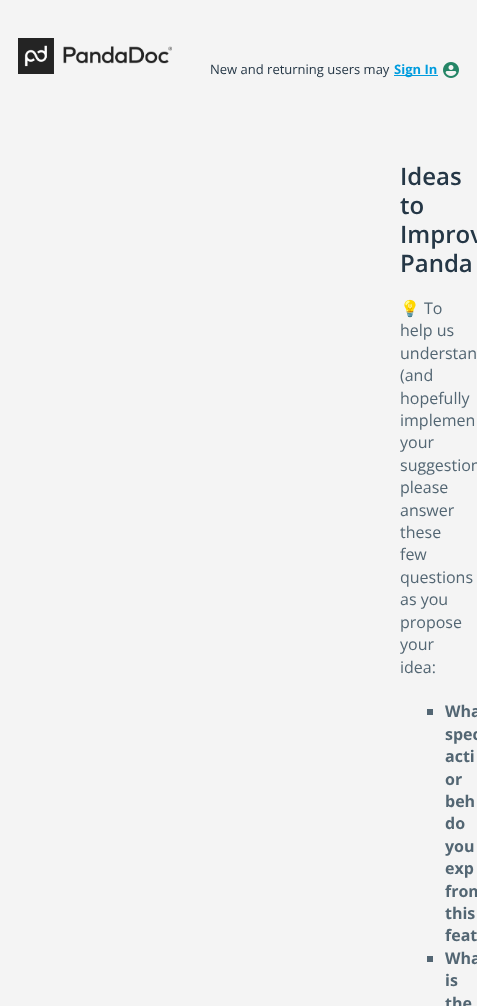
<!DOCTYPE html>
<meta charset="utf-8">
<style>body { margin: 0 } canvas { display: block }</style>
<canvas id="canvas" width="477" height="1006"></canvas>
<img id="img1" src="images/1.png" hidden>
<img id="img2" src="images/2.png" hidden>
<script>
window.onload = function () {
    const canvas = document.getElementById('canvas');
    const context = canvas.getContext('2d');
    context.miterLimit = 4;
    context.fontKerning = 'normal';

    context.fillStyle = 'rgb(244, 244, 244)';
    context.fillRect(0, 0, 477, 1006);
    context.drawImage(document.getElementById('img1'), 18, 38, 154, 36);
    context.fillStyle = 'rgb(0, 156, 222)';
    context.fillRect(394, 75, 44, 1);
    context.drawImage(document.getElementById('img2'), 443, 62, 16, 16);
    context.fillStyle = 'rgb(83, 102, 115)';
    context.fillRect(427, 709, 6, 6);
    context.fillRect(427, 956, 6, 6);
    context.font = '13px Open Sans';
    context.fillStyle = 'rgb(37, 55, 70)';
    context.fillText('New and returning users may', 210, 74);
    context.font = 'bold 13px Open Sans';
    context.fillStyle = 'rgb(0, 156, 222)';
    context.fillText('Sign In', 394, 74);
    context.font = '600 24px Open Sans';
    context.fillStyle = 'rgb(37, 55, 70)';
    context.fillText('Ideas', 400, 185);
    context.fillText('to', 400, 214);
    context.fillText('Improv', 400, 243);
    context.fillText('Panda', 400, 272);
    context.font = '16px Noto Color Emoji';
    context.fillStyle = 'rgb(83, 102, 115)';
    context.fillText('💡', 400, 314);
    context.font = '16px Open Sans';
    context.fillText('To', 424, 314);
    context.fillText('help us', 400, 336);
    context.fillText('understan', 400, 359);
    context.fillText('(and', 400, 381);
    context.fillText('hopefully', 400, 404);
    context.fillText('implemen', 400, 426);
    context.fillText('your', 400, 448);
    context.fillText('suggestion', 400, 471);
    context.fillText('please', 400, 493);
    context.fillText('answer', 400, 516);
    context.fillText('these', 400, 538);
    context.fillText('few', 400, 560);
    context.fillText('questions', 400, 583);
    context.fillText('as you', 400, 605);
    context.fillText('propose', 400, 628);
    context.fillText('your', 400, 650);
    context.fillText('idea:', 400, 673);
    context.font = 'bold 16px Open Sans';
    context.fillText('Wha', 445, 717);
    context.fillText('spec', 445, 740);
    context.fillText('acti', 445, 762);
    context.fillText('or', 445, 785);
    context.fillText('beh', 445, 807);
    context.fillText('do', 445, 829);
    context.fillText('you', 445, 852);
    context.fillText('exp', 445, 874);
    context.fillText('from', 445, 897);
    context.fillText('this', 445, 919);
    context.fillText('feat', 445, 941);
    context.fillText('Wha', 445, 964);
    context.fillText('is', 445, 986);
    context.fillText('the', 445, 1009);
};
</script>
